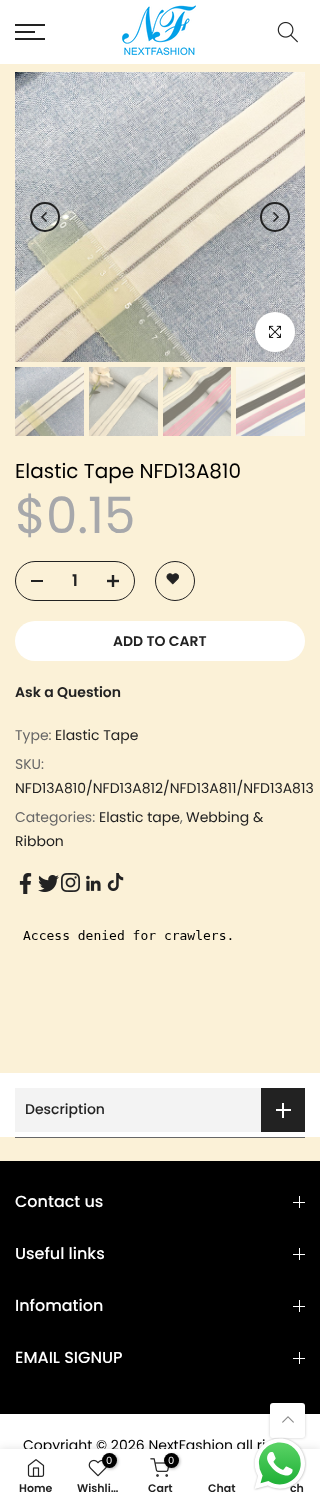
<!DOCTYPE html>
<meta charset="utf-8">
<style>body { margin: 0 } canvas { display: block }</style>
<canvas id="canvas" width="320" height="1504"></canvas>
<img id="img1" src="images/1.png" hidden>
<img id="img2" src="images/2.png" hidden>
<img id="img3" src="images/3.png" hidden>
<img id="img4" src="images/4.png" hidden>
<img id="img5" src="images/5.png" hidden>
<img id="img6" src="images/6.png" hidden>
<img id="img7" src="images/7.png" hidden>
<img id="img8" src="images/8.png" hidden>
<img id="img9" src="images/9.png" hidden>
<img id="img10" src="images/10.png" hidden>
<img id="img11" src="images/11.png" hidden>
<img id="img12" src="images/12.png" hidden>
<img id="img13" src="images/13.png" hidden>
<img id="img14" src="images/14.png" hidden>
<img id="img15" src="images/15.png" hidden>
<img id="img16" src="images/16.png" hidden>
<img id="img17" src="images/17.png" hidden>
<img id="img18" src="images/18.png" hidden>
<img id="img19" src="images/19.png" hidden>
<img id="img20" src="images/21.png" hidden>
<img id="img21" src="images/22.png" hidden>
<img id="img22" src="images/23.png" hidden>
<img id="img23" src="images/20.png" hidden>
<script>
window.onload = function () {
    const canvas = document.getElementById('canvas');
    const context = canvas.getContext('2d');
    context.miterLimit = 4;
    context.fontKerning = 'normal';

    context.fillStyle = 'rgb(251, 241, 215)';
    context.fillRect(0, 0, 320, 1504);
    context.fillStyle = 'rgb(255, 255, 255)';
    context.fillRect(0, 0, 320, 64);
    context.fillStyle = 'rgb(34, 34, 34)';
    context.fillRect(15, 24, 30, 2);
    context.fillRect(15, 31, 20, 2);
    context.fillRect(15, 38, 30, 2);
    context.drawImage(document.getElementById('img1'), 122, 5, 74, 51);
    context.drawImage(document.getElementById('img2'), 277, 21, 21, 22);
    context.drawImage(document.getElementById('img3'), 15, 72, 290, 290);
    context.beginPath();
    context.arc(45, 217, 14, 0, 2 * Math.PI);
    context.strokeStyle = 'rgb(34, 34, 34)';
    context.lineWidth = 2;
    context.stroke();
    context.drawImage(document.getElementById('img4'), 41, 212, 6, 10);
    context.beginPath();
    context.arc(275, 217, 14, 0, 2 * Math.PI);
    context.stroke();
    context.drawImage(document.getElementById('img5'), 273, 212, 6, 10);
    context.fillStyle = 'rgba(0, 0, 0, 0.09)';
    context.filter = 'blur(2.5px)';
    context.beginPath();
    context.roundRect(255, 312, 40, 40, 20);
    context.fill();
    context.filter = 'none';
    context.fillStyle = 'rgb(255, 255, 255)';
    context.beginPath();
    context.arc(275, 332, 20, 0, 2 * Math.PI);
    context.fill();
    context.drawImage(document.getElementById('img6'), 269, 325, 12, 13);
    context.drawImage(document.getElementById('img7'), 15, 367, 69, 69);
    context.drawImage(document.getElementById('img8'), 89, 367, 69, 69);
    context.drawImage(document.getElementById('img9'), 163, 367, 68, 69);
    context.drawImage(document.getElementById('img10'), 236, 367, 69, 69);
    context.beginPath();
    context.roundRect(15.5, 561.5, 119, 39, 19.5);
    context.lineWidth = 1;
    context.stroke();
    context.fillStyle = 'rgb(34, 34, 34)';
    context.fillRect(31, 580, 12, 2);
    context.drawImage(document.getElementById('img11'), 107, 575, 12, 12);
    context.beginPath();
    context.arc(175, 581, 19.5, 0, 2 * Math.PI);
    context.stroke();
    context.drawImage(document.getElementById('img12'), 166, 573, 13, 12);
    context.fillStyle = 'rgb(255, 255, 255)';
    context.beginPath();
    context.roundRect(15, 621, 290, 40, 20);
    context.fill();
    context.drawImage(document.getElementById('img13'), 19, 873, 13, 21);
    context.drawImage(document.getElementById('img14'), 38, 875, 21, 17);
    context.drawImage(document.getElementById('img15'), 61, 873, 19, 19);
    context.drawImage(document.getElementById('img16'), 86, 875, 15, 16);
    context.drawImage(document.getElementById('img17'), 107, 873, 17, 18);
    context.drawImage(document.getElementById('img18'), 23, 930, 209, 10);
    context.fillRect(0, 1073, 320, 64);
    context.fillStyle = 'rgb(243, 243, 243)';
    context.fillRect(15, 1088, 246, 44);
    context.fillStyle = 'rgb(34, 34, 34)';
    context.fillRect(261, 1088, 44, 44);
    context.fillStyle = 'rgb(255, 255, 255)';
    context.fillRect(282, 1103, 2, 15);
    context.fillRect(276, 1109, 15, 2);
    context.fillStyle = 'rgb(103, 103, 103)';
    context.fillRect(15, 1137, 290, 1);
    context.fillStyle = 'rgb(0, 0, 0)';
    context.fillRect(0, 1161, 320, 253);
    context.fillStyle = 'rgb(255, 255, 255)';
    context.fillRect(299, 1196, 1, 12);
    context.fillRect(293, 1202, 12, 1);
    context.fillRect(299, 1248, 1, 12);
    context.fillRect(293, 1254, 12, 1);
    context.fillRect(299, 1300, 1, 12);
    context.fillRect(293, 1306, 12, 1);
    context.fillRect(299, 1352, 1, 12);
    context.fillRect(293, 1358, 12, 1);
    context.fillRect(0, 1414, 320, 35);
    context.fillStyle = 'rgba(0, 0, 0, 0.2)';
    context.filter = 'blur(1.5px)';
    context.beginPath();
    context.roundRect(270, 1403, 35, 35, 3);
    context.fill();
    context.filter = 'none';
    context.fillStyle = 'rgb(255, 255, 255)';
    context.beginPath();
    context.roundRect(270, 1403, 35, 35, 3);
    context.fill();
    context.drawImage(document.getElementById('img19'), 282, 1416, 12, 7);
    context.fillStyle = 'rgba(0, 0, 0, 0.12)';
    context.filter = 'blur(4.5px)';
    context.beginPath();
    context.rect(0, 1449, 320, 55);
    context.fill();
    context.filter = 'none';
    context.font = '20px Poppins';
    context.fillStyle = 'rgb(0, 0, 0)';
    context.fillText('Elastic Tape NFD13A810', 15, 478);
    context.font = '50px Poppins';
    context.fillStyle = 'rgb(167, 168, 171)';
    context.fillText('$0.15', 15, 533);
    context.font = '600 16px Poppins';
    context.fillStyle = 'rgb(34, 34, 34)';
    context.fillText('1', 72, 586);
    context.font = '600 14px Poppins';
    context.fillText('ADD TO CART', 113, 646);
    context.fillText('Ask a Question', 15, 697);
    context.font = '14px Poppins';
    context.fillStyle = 'rgb(103, 103, 103)';
    context.fillText('Type:', 15, 740);
    context.fillStyle = 'rgb(34, 34, 34)';
    context.fillText('Elastic Tape', 55, 740);
    context.fillStyle = 'rgb(103, 103, 103)';
    context.fillText('SKU:', 15, 769);
    context.fillStyle = 'rgb(34, 34, 34)';
    context.fillText('NFD13A810/NFD13A812/NFD13A811/NFD13A813', 15, 793);
    context.fillStyle = 'rgb(103, 103, 103)';
    context.fillText('Categories:', 15, 822);
    context.fillStyle = 'rgb(34, 34, 34)';
    context.fillText('Elastic tape', 99, 822);
    context.fillStyle = 'rgb(103, 103, 103)';
    context.fillText(',', 180, 822);
    context.fillStyle = 'rgb(34, 34, 34)';
    context.fillText('Webbing &', 186, 822);
    context.fillText('Ribbon', 15, 846);
    context.font = '500 14px Poppins';
    context.fillText('Description', 25, 1114);
    context.font = '500 16px Poppins';
    context.fillStyle = 'rgb(255, 255, 255)';
    context.fillText('Contact us', 15, 1207);
    context.fillText('Useful links', 15, 1259);
    context.fillText('Infomation', 15, 1311);
    context.fillText('EMAIL SIGNUP', 15, 1363);
    context.font = '14px Poppins';
    context.fillStyle = 'rgb(0, 0, 0)';
    context.fillText('Copyright © 2026 NextFashion all ri', 23, 1450);
    context.fillStyle = 'rgb(255, 255, 255)';
    context.fillRect(0, 1449, 320, 55);
    context.drawImage(document.getElementById('img20'), 27, 1459, 18, 18);
    context.font = '600 11px Poppins';
    context.fillStyle = 'rgb(34, 34, 34)';
    context.fillText('Home', 19, 1492);
    context.drawImage(document.getElementById('img21'), 88, 1459, 19, 18);
    context.fillStyle = 'rgba(0, 0, 0, 0.3)';
    context.filter = 'blur(1.5px)';
    context.beginPath();
    context.roundRect(103, 1454, 15, 15, 7.5);
    context.fill();
    context.filter = 'none';
    context.fillStyle = 'rgb(0, 0, 0)';
    context.beginPath();
    context.arc(109.5, 1460.5, 7.5, 0, 2 * Math.PI);
    context.fill();
    context.font = '10px Poppins';
    context.fillStyle = 'rgb(255, 255, 255)';
    context.fillText('0', 106, 1464);
    context.font = '600 11px Poppins';
    context.fillStyle = 'rgb(34, 34, 34)';
    context.fillText('Wishli…', 77, 1492);
    context.drawImage(document.getElementById('img22'), 150, 1458, 19, 19);
    context.fillStyle = 'rgba(0, 0, 0, 0.3)';
    context.filter = 'blur(1.5px)';
    context.beginPath();
    context.roundRect(165, 1454, 15, 15, 7.5);
    context.fill();
    context.filter = 'none';
    context.fillStyle = 'rgb(0, 0, 0)';
    context.beginPath();
    context.arc(171.5, 1460.5, 7.5, 0, 2 * Math.PI);
    context.fill();
    context.font = '10px Poppins';
    context.fillStyle = 'rgb(255, 255, 255)';
    context.fillText('0', 168, 1464);
    context.font = '600 11px Poppins';
    context.fillStyle = 'rgb(34, 34, 34)';
    context.fillText('Cart', 148, 1492);
    context.fillText('Chat', 208, 1492);
    context.fillText('ch', 290, 1492);
    context.drawImage(document.getElementById('img23'), 253, 1437, 54, 54);
};
</script>
